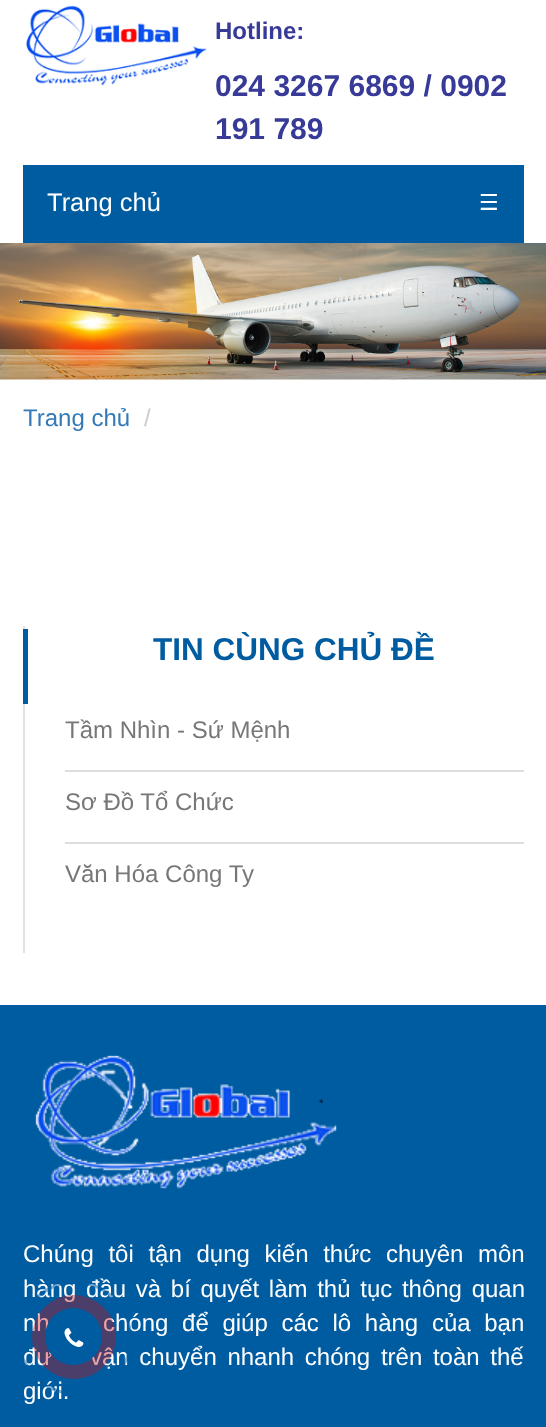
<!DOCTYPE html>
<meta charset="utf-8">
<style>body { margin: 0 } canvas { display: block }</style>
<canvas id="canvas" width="546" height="1427"></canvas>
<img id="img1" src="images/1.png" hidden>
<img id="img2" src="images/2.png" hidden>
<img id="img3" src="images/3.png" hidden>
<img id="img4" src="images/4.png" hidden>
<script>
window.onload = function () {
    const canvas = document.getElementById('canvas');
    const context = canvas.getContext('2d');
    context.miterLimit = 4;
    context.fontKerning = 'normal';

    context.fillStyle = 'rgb(255, 255, 255)';
    context.fillRect(0, 0, 546, 1427);
    context.drawImage(document.getElementById('img1'), 26, 5, 181, 81);
    context.fillStyle = 'rgb(0, 92, 161)';
    context.fillRect(23, 165, 501, 78);
    context.drawImage(document.getElementById('img2'), 0, 243, 546, 137);
    context.fillStyle = 'rgb(226, 226, 226)';
    context.fillRect(23, 626, 2, 327);
    context.fillStyle = 'rgb(0, 92, 161)';
    context.fillRect(23, 629, 5, 75);
    context.fillStyle = 'rgb(221, 221, 221)';
    context.fillRect(65, 770, 459, 2);
    context.fillRect(65, 842, 459, 2);
    context.fillStyle = 'rgb(0, 92, 161)';
    context.fillRect(0, 1005, 546, 422);
    context.drawImage(document.getElementById('img3'), 35, 1055, 302, 134);
    context.font = 'bold 24px Liberation Sans';
    context.fillStyle = 'rgb(55, 58, 151)';
    context.fillText('Hotline:', 215, 39);
    context.font = 'bold 30px Liberation Sans';
    context.fillText('024 3267 6869 / 0902', 215, 96);
    context.fillText('191 789', 215, 139);
    context.font = '25.5px Liberation Sans';
    context.fillStyle = 'rgb(255, 255, 255)';
    context.fillText('Trang chủ', 47, 211);
    context.font = '22px DejaVu Sans';
    context.fillText('☰', 479, 210);
    context.font = '24px Liberation Sans';
    context.fillStyle = 'rgb(51, 122, 183)';
    context.fillText('Trang chủ', 23, 426);
    context.fillStyle = 'rgb(204, 204, 204)';
    context.fillText('/', 144, 426);
    context.font = 'bold 31.5px Liberation Sans';
    context.fillStyle = 'rgb(0, 92, 161)';
    context.fillText('TIN CÙNG CHỦ ĐỀ', 153, 660);
    context.font = '24px Liberation Sans';
    context.fillStyle = 'rgb(119, 119, 119)';
    context.fillText('Tầm Nhìn - Sứ Mệnh', 65, 738);
    context.fillText('Sơ Đồ Tổ Chức', 65, 810);
    context.fillText('Văn Hóa Công Ty', 65, 882);
    context.wordSpacing = '8px';
    context.fillStyle = 'rgb(255, 255, 255)';
    context.fillText('Chúng tôi tận dụng kiến thức chuyên môn', 23, 1262);
    context.wordSpacing = '3px';
    context.fillText('hàng đầu và bí quyết làm thủ tục thông quan', 23, 1297);
    context.wordSpacing = '7px';
    context.fillText('nh', 23, 1331);
    context.fillText('chóng để giúp các lô hàng của bạn', 103, 1331);
    context.wordSpacing = '4px';
    context.fillText('đư', 23, 1365);
    context.fillText('vận chuyển nhanh chóng trên toàn thế', 90, 1365);
    context.wordSpacing = '0px';
    context.fillText('giới.', 23, 1399);
    context.beginPath();
    context.arc(75, 1338, 55.5, 0, 2 * Math.PI);
    context.strokeStyle = 'rgba(0, 92, 161, 0.5)';
    context.lineWidth = 3;
    context.stroke();
    context.fillStyle = 'rgba(201, 12, 19, 0.38)';
    context.beginPath();
    context.arc(74, 1337, 42, 0, 2 * Math.PI);
    context.fill();
    context.fillStyle = 'rgb(0, 92, 161)';
    context.beginPath();
    context.arc(73.5, 1336.5, 28.5, 0, 2 * Math.PI);
    context.fill();
    context.drawImage(document.getElementById('img4'), 64, 1328, 20, 19);
};
</script>
